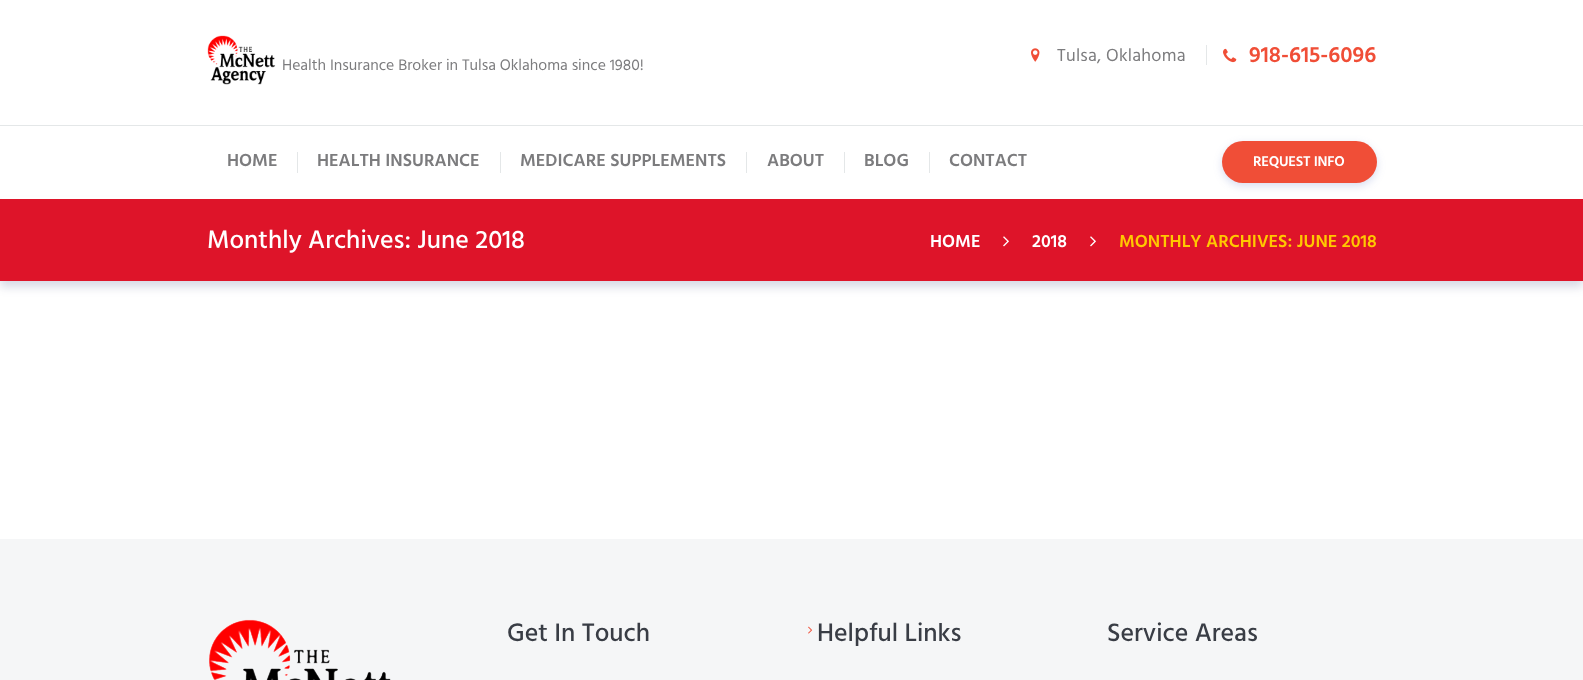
<!DOCTYPE html>
<meta charset="utf-8">
<style>body { margin: 0 } canvas { display: block }</style>
<canvas id="canvas" width="1583" height="680"></canvas>
<img id="img1" src="images/1.png" hidden>
<img id="img2" src="images/2.png" hidden>
<img id="img3" src="images/3.png" hidden>
<img id="img4" src="images/4.png" hidden>
<img id="img5" src="images/5.png" hidden>
<img id="img6" src="images/6.png" hidden>
<script>
window.onload = function () {
    const canvas = document.getElementById('canvas');
    const context = canvas.getContext('2d');
    context.miterLimit = 4;
    context.fontKerning = 'normal';

    context.fillStyle = 'rgb(255, 255, 255)';
    context.fillRect(0, 0, 1583, 680);
    context.fillStyle = 'rgba(42, 54, 109, 0.19)';
    context.filter = 'blur(5px)';
    context.beginPath();
    context.rect(0, 205, 1583, 82);
    context.fill();
    context.filter = 'none';
    context.fillStyle = 'rgb(255, 255, 255)';
    context.fillRect(2, 197, 1579, 2);
    context.drawImage(document.getElementById('img1'), 207, 35, 69, 50);
    context.drawImage(document.getElementById('img2'), 1031, 48, 9, 14);
    context.fillStyle = 'rgb(228, 231, 232)';
    context.fillRect(1206, 45, 1, 20);
    context.drawImage(document.getElementById('img3'), 1223, 48, 14, 15);
    context.fillRect(0, 125, 1583, 1);
    context.fillRect(297, 152, 1, 21);
    context.fillRect(500, 152, 1, 21);
    context.fillRect(746, 152, 1, 21);
    context.fillRect(844, 152, 1, 21);
    context.fillRect(929, 152, 1, 21);
    context.fillStyle = 'rgba(61, 83, 181, 0.2)';
    context.filter = 'blur(4px)';
    context.beginPath();
    context.roundRect(1222, 144, 155, 42, 21);
    context.fill();
    context.filter = 'none';
    context.fillStyle = 'rgb(240, 78, 55)';
    context.beginPath();
    context.roundRect(1222, 141, 155, 42, 21);
    context.fill();
    context.fillStyle = 'rgb(222, 20, 41)';
    context.fillRect(0, 199, 1583, 82);
    context.drawImage(document.getElementById('img4'), 1003, 236, 6, 11);
    context.drawImage(document.getElementById('img4'), 1090, 236, 6, 11);
    context.fillStyle = 'rgb(245, 246, 247)';
    context.fillRect(0, 539, 1583, 141);
    context.drawImage(document.getElementById('img5'), 209, 619, 182, 61);
    context.drawImage(document.getElementById('img6'), 808, 626, 5, 8);
    context.font = '15.75px Hind';
    context.fillStyle = 'rgb(124, 124, 126)';
    context.fillText('Health Insurance Broker in Tulsa Oklahoma since 1980!', 282, 70);
    context.letterSpacing = '0.25px';
    context.font = '18px Hind';
    context.fillText('Tulsa, Oklahoma', 1057, 61);
    context.letterSpacing = '0px';
    context.font = '600 22.5px Hind';
    context.fillStyle = 'rgb(240, 78, 55)';
    context.fillText('918-615-6096', 1249, 62);
    context.font = '600 18px Hind';
    context.fillStyle = 'rgb(124, 124, 126)';
    context.fillText('HOME', 227, 166);
    context.fillText('HEALTH INSURANCE', 317, 166);
    context.fillText('MEDICARE SUPPLEMENTS', 520, 166);
    context.fillText('ABOUT', 767, 166);
    context.fillText('BLOG', 864, 166);
    context.fillText('CONTACT', 949, 166);
    context.letterSpacing = '-0.25px';
    context.font = '600 14.5px Hind';
    context.fillStyle = 'rgb(255, 255, 255)';
    context.fillText('REQUEST INFO', 1253, 166);
    context.letterSpacing = '0px';
    context.font = '500 25.9px Hind';
    context.fillText('Monthly Archives: June 2018', 207, 248);
    context.font = '600 18px Hind';
    context.fillText('HOME', 930, 247);
    context.fillText('2018', 1032, 247);
    context.fillStyle = 'rgb(255, 200, 0)';
    context.fillText('MONTHLY ARCHIVES: JUNE 2018', 1119, 247);
    context.font = '500 25.9px Hind';
    context.fillStyle = 'rgb(57, 61, 69)';
    context.fillText('Get In Touch', 507, 641);
    context.fillText('Helpful Links', 817, 641);
    context.fillText('Service Areas', 1107, 641);
};
</script>
